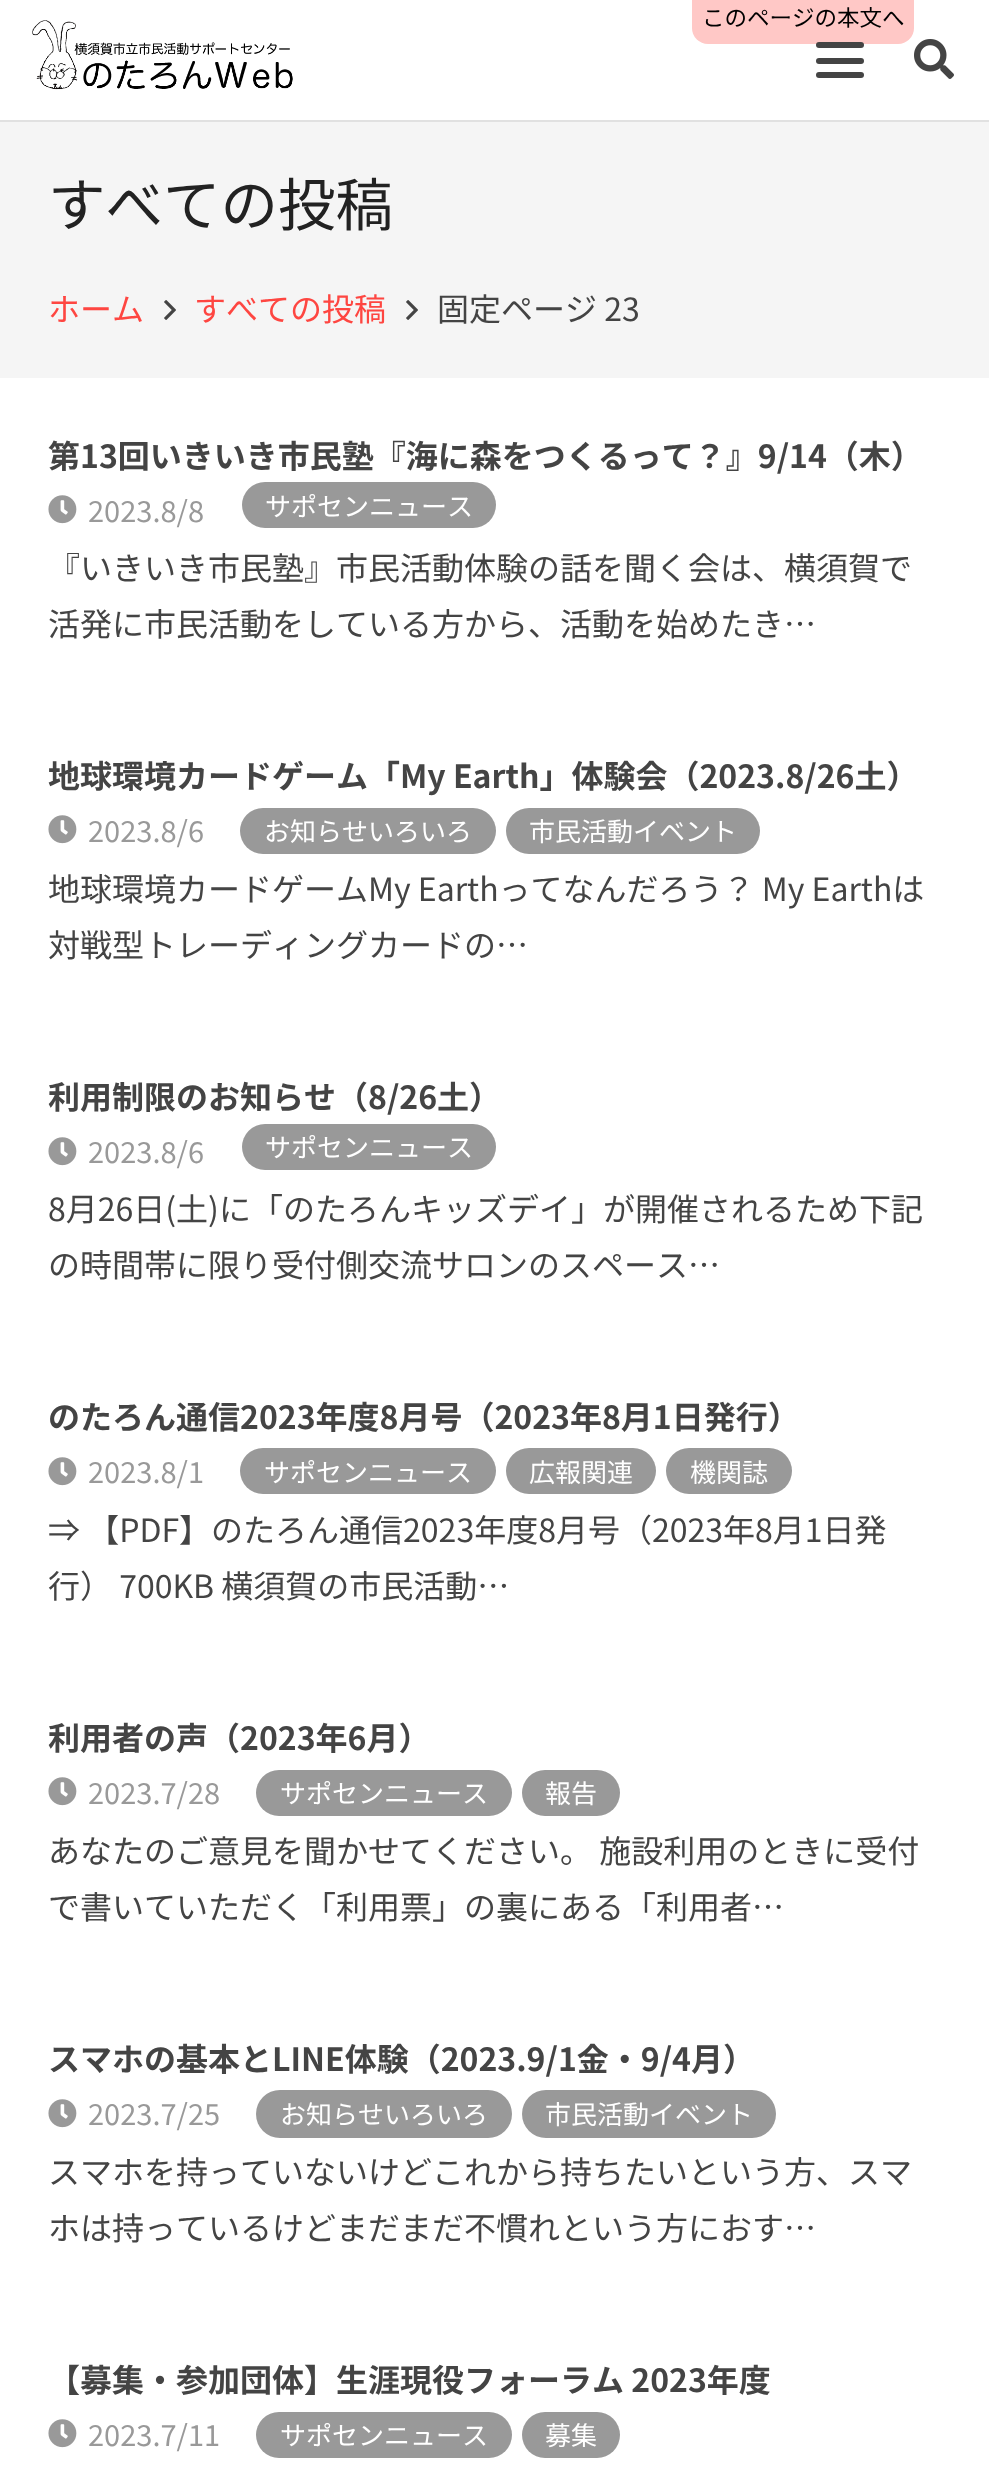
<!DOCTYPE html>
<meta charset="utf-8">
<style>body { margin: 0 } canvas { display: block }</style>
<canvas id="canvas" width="989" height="2479"></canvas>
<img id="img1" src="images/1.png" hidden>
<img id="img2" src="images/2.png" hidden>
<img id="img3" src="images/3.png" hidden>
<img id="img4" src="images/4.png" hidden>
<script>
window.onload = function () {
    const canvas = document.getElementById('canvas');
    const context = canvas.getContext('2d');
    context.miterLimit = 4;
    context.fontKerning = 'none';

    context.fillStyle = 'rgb(255, 255, 255)';
    context.fillRect(0, 0, 989, 2479);
    context.fillStyle = 'rgb(225, 225, 225)';
    context.fillRect(0, 120, 989, 2);
    context.fillStyle = 'rgb(255, 200, 198)';
    context.beginPath();
    context.roundRect(692, 0, 222, 44, [0, 0, 16, 16]);
    context.fill();
    context.drawImage(document.getElementById('img1'), 32, 20, 261, 70);
    context.fillStyle = 'rgb(68, 68, 68)';
    context.beginPath();
    context.roundRect(816, 58, 48, 6, 3);
    context.fill();
    context.beginPath();
    context.roundRect(816, 42, 48, 6, 3);
    context.fill();
    context.beginPath();
    context.roundRect(816, 72, 48, 6, 3);
    context.fill();
    context.drawImage(document.getElementById('img2'), 914, 39, 40, 40);
    context.fillStyle = 'rgb(245, 245, 245)';
    context.fillRect(0, 122, 989, 256);
    context.drawImage(document.getElementById('img3'), 164, 300, 12, 20);
    context.drawImage(document.getElementById('img3'), 406, 300, 12, 20);
    context.drawImage(document.getElementById('img4'), 48, 495, 29, 29);
    context.fillStyle = 'rgb(153, 153, 153)';
    context.beginPath();
    context.roundRect(242, 482, 254, 46, 23);
    context.fill();
    context.drawImage(document.getElementById('img4'), 48, 815, 29, 29);
    context.beginPath();
    context.roundRect(240, 808, 256, 46, 23);
    context.fill();
    context.beginPath();
    context.roundRect(506, 808, 254, 46, 23);
    context.fill();
    context.drawImage(document.getElementById('img4'), 48, 1137, 29, 29);
    context.beginPath();
    context.roundRect(242, 1124, 254, 46, 23);
    context.fill();
    context.drawImage(document.getElementById('img4'), 48, 1457, 29, 29);
    context.beginPath();
    context.roundRect(240, 1448, 256, 46, 23);
    context.fill();
    context.beginPath();
    context.roundRect(506, 1448, 150, 46, 23);
    context.fill();
    context.beginPath();
    context.roundRect(666, 1448, 126, 46, 23);
    context.fill();
    context.drawImage(document.getElementById('img4'), 48, 1777, 29, 29);
    context.beginPath();
    context.roundRect(256, 1770, 256, 46, 23);
    context.fill();
    context.beginPath();
    context.roundRect(522, 1770, 98, 46, 23);
    context.fill();
    context.drawImage(document.getElementById('img4'), 48, 2099, 29, 29);
    context.beginPath();
    context.roundRect(256, 2090, 256, 48, 24);
    context.fill();
    context.beginPath();
    context.roundRect(522, 2090, 254, 48, 24);
    context.fill();
    context.drawImage(document.getElementById('img4'), 48, 2419, 29, 29);
    context.beginPath();
    context.roundRect(256, 2412, 256, 46, 23);
    context.fill();
    context.beginPath();
    context.roundRect(522, 2412, 98, 46, 23);
    context.fill();
    context.font = '22.5px Noto Sans JP';
    context.fillStyle = 'rgb(0, 0, 0)';
    context.fillText('このページの本文へ', 702, 26);
    context.font = '57.5px Noto Sans JP';
    context.fillStyle = 'rgb(34, 34, 34)';
    context.fillText('すべての投稿', 48, 226);
    context.font = '32px Noto Sans JP';
    context.fillStyle = 'rgb(254, 70, 65)';
    context.fillText('ホーム', 48, 321);
    context.fillText('すべての投稿', 194, 321);
    context.fillStyle = 'rgb(68, 68, 68)';
    context.fillText('固定ページ 23', 437, 321);
    context.font = 'bold 32px Noto Sans JP';
    context.fillText('第13回いきいき市民塾『海に森をつくるって？』9/14（木）', 48, 468);
    context.font = '29px Noto Sans JP';
    context.fillStyle = 'rgb(153, 153, 153)';
    context.fillText('2023.8/8', 88, 522);
    context.font = '26px Noto Sans JP';
    context.fillStyle = 'rgb(255, 255, 255)';
    context.fillText('サポセンニュース', 265, 516);
    context.font = '32px Noto Sans JP';
    context.fillStyle = 'rgb(68, 68, 68)';
    context.fillText('『いきいき市民塾』市民活動体験の話を聞く会は、横須賀で', 48, 580);
    context.fillText('活発に市民活動をしている方から、活動を始めたき…', 48, 636);
    context.font = 'bold 32px Noto Sans JP';
    context.fillText('地球環境カードゲーム「My Earth」体験会（2023.8/26土）', 48, 788);
    context.font = '29px Noto Sans JP';
    context.fillStyle = 'rgb(153, 153, 153)';
    context.fillText('2023.8/6', 88, 842);
    context.font = '26px Noto Sans JP';
    context.fillStyle = 'rgb(255, 255, 255)';
    context.fillText('お知らせいろいろ', 264, 841);
    context.fillText('市民活動イベント', 529, 841);
    context.font = '32px Noto Sans JP';
    context.fillStyle = 'rgb(68, 68, 68)';
    context.fillText('地球環境カードゲームMy Earthってなんだろう？ My Earthは', 48, 901);
    context.fillText('対戦型トレーディングカードの…', 48, 957);
    context.font = 'bold 32px Noto Sans JP';
    context.fillText('利用制限のお知らせ（8/26土）', 48, 1109);
    context.font = '29px Noto Sans JP';
    context.fillStyle = 'rgb(153, 153, 153)';
    context.fillText('2023.8/6', 88, 1163);
    context.font = '26px Noto Sans JP';
    context.fillStyle = 'rgb(255, 255, 255)';
    context.fillText('サポセンニュース', 265, 1157);
    context.font = '32px Noto Sans JP';
    context.fillStyle = 'rgb(68, 68, 68)';
    context.fillText('8月26日(土)に「のたろんキッズデイ」が開催されるため下記', 48, 1221);
    context.fillText('の時間帯に限り受付側交流サロンのスペース…', 48, 1277);
    context.font = 'bold 32px Noto Sans JP';
    context.fillText('のたろん通信2023年度8月号（2023年8月1日発行）', 48, 1429);
    context.font = '29px Noto Sans JP';
    context.fillStyle = 'rgb(153, 153, 153)';
    context.fillText('2023.8/1', 88, 1483);
    context.font = '26px Noto Sans JP';
    context.fillStyle = 'rgb(255, 255, 255)';
    context.fillText('サポセンニュース', 264, 1482);
    context.fillText('広報関連', 529, 1482);
    context.fillText('機関誌', 690, 1482);
    context.font = '32px Noto Sans JP';
    context.fillStyle = 'rgb(68, 68, 68)';
    context.fillText('⇒ 【PDF】のたろん通信2023年度8月号（2023年8月1日発', 48, 1542);
    context.fillText('行） 700KB 横須賀の市民活動…', 48, 1598);
    context.font = 'bold 32px Noto Sans JP';
    context.fillText('利用者の声（2023年6月）', 48, 1750);
    context.font = '29px Noto Sans JP';
    context.fillStyle = 'rgb(153, 153, 153)';
    context.fillText('2023.7/28', 88, 1804);
    context.font = '26px Noto Sans JP';
    context.fillStyle = 'rgb(255, 255, 255)';
    context.fillText('サポセンニュース', 280, 1803);
    context.fillText('報告', 545, 1803);
    context.font = '32px Noto Sans JP';
    context.fillStyle = 'rgb(68, 68, 68)';
    context.fillText('あなたのご意見を聞かせてください。 施設利用のときに受付', 48, 1863);
    context.fillText('で書いていただく「利用票」の裏にある「利用者…', 48, 1919);
    context.font = 'bold 32px Noto Sans JP';
    context.fillText('スマホの基本とLINE体験（2023.9/1金・9/4月）', 48, 2071);
    context.font = '29px Noto Sans JP';
    context.fillStyle = 'rgb(153, 153, 153)';
    context.fillText('2023.7/25', 88, 2125);
    context.font = '26px Noto Sans JP';
    context.fillStyle = 'rgb(255, 255, 255)';
    context.fillText('お知らせいろいろ', 280, 2124);
    context.fillText('市民活動イベント', 545, 2124);
    context.font = '32px Noto Sans JP';
    context.fillStyle = 'rgb(68, 68, 68)';
    context.fillText('スマホを持っていないけどこれから持ちたいという方、スマ', 48, 2184);
    context.fillText('ホは持っているけどまだまだ不慣れという方におす…', 48, 2240);
    context.font = 'bold 32px Noto Sans JP';
    context.fillText('【募集・参加団体】生涯現役フォーラム 2023年度', 48, 2392);
    context.font = '29px Noto Sans JP';
    context.fillStyle = 'rgb(153, 153, 153)';
    context.fillText('2023.7/11', 88, 2446);
    context.font = '26px Noto Sans JP';
    context.fillStyle = 'rgb(255, 255, 255)';
    context.fillText('サポセンニュース', 280, 2445);
    context.fillText('募集', 545, 2445);
};
</script>
